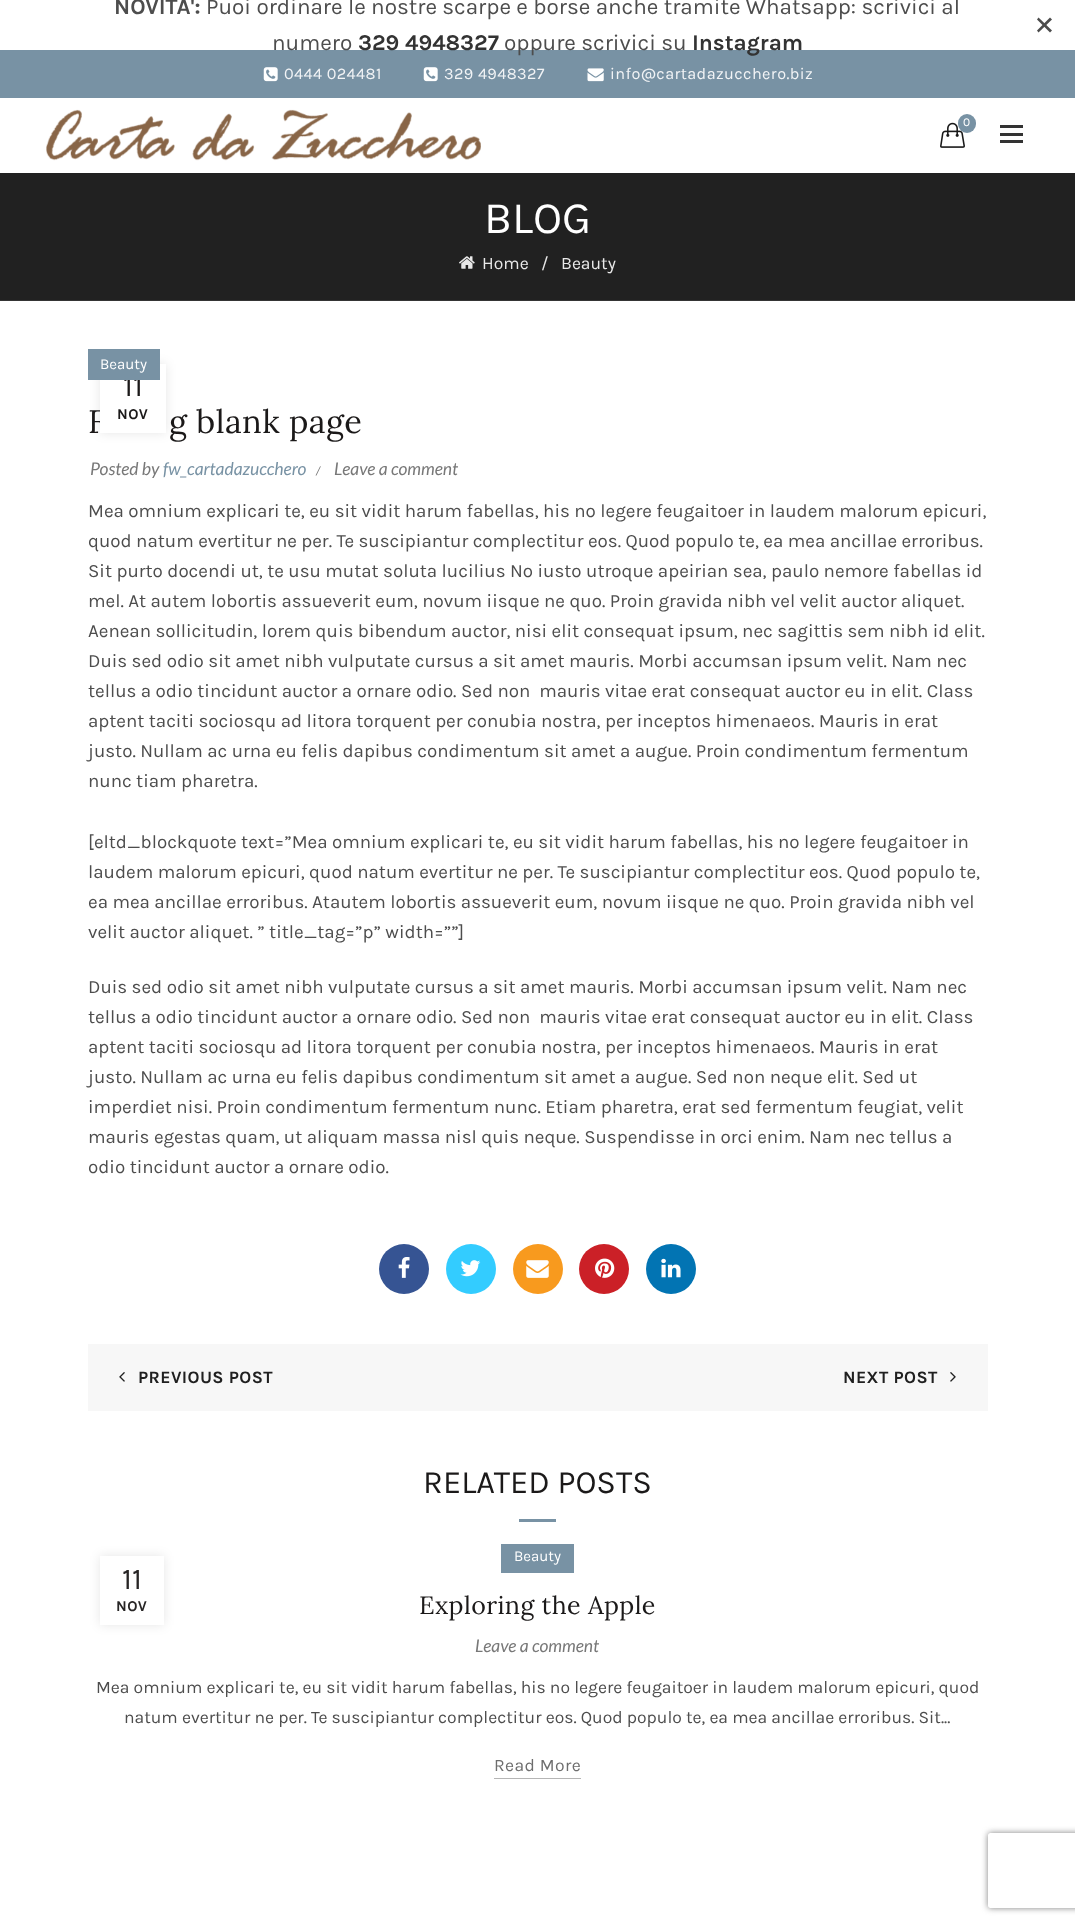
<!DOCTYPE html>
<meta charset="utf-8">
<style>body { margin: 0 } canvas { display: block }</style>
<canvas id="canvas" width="1075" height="1924"></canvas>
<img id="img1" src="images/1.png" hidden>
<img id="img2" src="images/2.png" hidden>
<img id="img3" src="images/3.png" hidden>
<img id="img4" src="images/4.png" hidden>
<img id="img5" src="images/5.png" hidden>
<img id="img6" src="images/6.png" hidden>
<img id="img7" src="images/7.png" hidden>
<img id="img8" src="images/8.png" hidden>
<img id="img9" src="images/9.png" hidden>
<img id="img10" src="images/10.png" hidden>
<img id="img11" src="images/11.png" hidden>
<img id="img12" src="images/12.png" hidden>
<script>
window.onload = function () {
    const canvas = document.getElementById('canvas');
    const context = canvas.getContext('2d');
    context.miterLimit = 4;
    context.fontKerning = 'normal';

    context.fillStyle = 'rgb(255, 255, 255)';
    context.fillRect(0, 0, 1075, 1924);
    context.fillStyle = 'rgb(76, 76, 76)';
    context.beginPath();
    context.moveTo(1038.5, 17.5);
    context.lineTo(1052, 30.5);
    context.lineTo(1050, 32.5);
    context.lineTo(1037, 19.5);
    context.closePath();
    context.fill();
    context.beginPath();
    context.moveTo(1037, 30.5);
    context.lineTo(1050, 17.5);
    context.lineTo(1052, 19.5);
    context.lineTo(1038.5, 32.5);
    context.closePath();
    context.fill();
    context.fillStyle = 'rgb(120, 146, 164)';
    context.fillRect(0, 50, 1075, 48);
    context.drawImage(document.getElementById('img1'), 263, 67, 15, 15);
    context.drawImage(document.getElementById('img1'), 423, 67, 15, 15);
    context.drawImage(document.getElementById('img2'), 587, 68, 17, 14);
    context.drawImage(document.getElementById('img3'), 46, 109, 435, 52);
    context.drawImage(document.getElementById('img4'), 940, 122, 25, 26);
    context.beginPath();
    context.roundRect(958, 114, 18, 19, 9);
    context.fill();
    context.fillStyle = 'rgb(51, 51, 51)';
    context.fillRect(1000, 133, 23, 3);
    context.fillRect(1000, 125, 23, 3);
    context.fillRect(1000, 140, 23, 3);
    context.fillStyle = 'rgb(33, 33, 33)';
    context.fillRect(0, 173, 1075, 127);
    context.fillStyle = 'rgb(53, 53, 53)';
    context.fillRect(0, 300, 1075, 1);
    context.drawImage(document.getElementById('img5'), 459, 256, 16, 13);
    context.fillStyle = 'rgba(0, 0, 0, 0.1)';
    context.filter = 'blur(5.5px)';
    context.beginPath();
    context.rect(100, 364, 66, 69);
    context.fill();
    context.filter = 'none';
    context.fillStyle = 'rgb(54, 84, 147)';
    context.beginPath();
    context.arc(404, 1269, 25, 0, 2 * Math.PI);
    context.fill();
    context.drawImage(document.getElementById('img6'), 398, 1257, 12, 21);
    context.fillStyle = 'rgb(51, 204, 255)';
    context.beginPath();
    context.arc(471, 1269, 25, 0, 2 * Math.PI);
    context.fill();
    context.drawImage(document.getElementById('img7'), 460, 1260, 21, 17);
    context.fillStyle = 'rgb(248, 154, 30)';
    context.beginPath();
    context.arc(538, 1269, 25, 0, 2 * Math.PI);
    context.fill();
    context.drawImage(document.getElementById('img8'), 526, 1260, 23, 18);
    context.fillStyle = 'rgb(203, 32, 39)';
    context.beginPath();
    context.arc(604, 1269, 25, 0, 2 * Math.PI);
    context.fill();
    context.drawImage(document.getElementById('img9'), 595, 1258, 20, 20);
    context.fillStyle = 'rgb(2, 116, 179)';
    context.beginPath();
    context.arc(671, 1269, 25, 0, 2 * Math.PI);
    context.fill();
    context.drawImage(document.getElementById('img10'), 661, 1258, 20, 20);
    context.fillStyle = 'rgb(247, 247, 247)';
    context.fillRect(88, 1344, 900, 67);
    context.drawImage(document.getElementById('img11'), 119, 1372, 6, 10);
    context.drawImage(document.getElementById('img12'), 950, 1372, 6, 10);
    context.fillStyle = 'rgb(120, 146, 164)';
    context.fillRect(519, 1519, 37, 3);
    context.fillRect(501, 1544, 73, 29);
    context.fillStyle = 'rgb(181, 181, 181)';
    context.fillRect(494, 1778, 87, 1);
    context.fillStyle = 'rgba(0, 0, 0, 0.1)';
    context.filter = 'blur(5.5px)';
    context.beginPath();
    context.rect(100, 1556, 64, 69);
    context.fill();
    context.filter = 'none';
    context.fillStyle = 'rgb(255, 255, 255)';
    context.fillRect(100, 1556, 64, 69);
    context.save();
    context.beginPath();
    context.moveTo(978, 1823);
    context.lineTo(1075, 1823);
    context.lineTo(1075, 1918);
    context.lineTo(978, 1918);
    context.closePath();
    context.moveTo(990.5, 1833);
    context.lineTo(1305.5, 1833);
    context.bezierCurveTo(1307, 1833, 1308, 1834, 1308, 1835.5);
    context.lineTo(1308, 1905.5);
    context.bezierCurveTo(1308, 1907, 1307, 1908, 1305.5, 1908);
    context.lineTo(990.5, 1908);
    context.bezierCurveTo(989, 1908, 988, 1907, 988, 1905.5);
    context.lineTo(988, 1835.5);
    context.bezierCurveTo(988, 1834, 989, 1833, 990.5, 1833);
    context.closePath();
    context.clip('evenodd');
    context.fillStyle = 'rgb(128, 128, 128)';
    context.filter = 'blur(3px)';
    context.beginPath();
    context.roundRect(988, 1833, 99, 75, 2.5);
    context.fill();
    context.filter = 'none';
    context.restore();
    context.font = 'bold 22.5px Karla';
    context.fillStyle = 'rgb(77, 77, 77)';
    context.fillText('NOVITA\':', 114, 14);
    context.font = '22.5px Karla';
    context.fillText('Puoi ordinare le nostre scarpe e borse anche tramite Whatsapp: scrivici al', 206, 14);
    context.fillText('numero', 272, 50);
    context.font = 'bold 22.5px Karla';
    context.fillStyle = 'rgb(51, 51, 51)';
    context.fillText('329 4948327', 358, 50);
    context.font = '22.5px Karla';
    context.fillStyle = 'rgb(77, 77, 77)';
    context.fillText('oppure scrivici su', 504, 50);
    context.font = 'bold 22.5px Karla';
    context.fillStyle = 'rgb(51, 51, 51)';
    context.fillText('Instagram', 692, 50);
    context.letterSpacing = '0.4px';
    context.font = '16.25px Karla';
    context.fillStyle = 'rgb(242, 244, 246)';
    context.fillText('0444 024481', 284, 79);
    context.fillText('329 4948327', 444, 79);
    context.fillText('info@cartadazucchero.biz', 610, 79);
    context.letterSpacing = '0px';
    context.font = '12px Karla';
    context.fillStyle = 'rgb(255, 255, 255)';
    context.fillText('0', 963, 126);
    context.font = '45px Karla';
    context.fillText('BLOG', 484, 233);
    context.font = '17.5px Karla';
    context.fillStyle = 'rgb(233, 233, 233)';
    context.fillText('Home', 482, 269);
    context.fillText('/', 541, 269);
    context.fillText('Beauty', 561, 269);
    context.letterSpacing = '0.4px';
    context.font = '32.5px Lora';
    context.fillStyle = 'rgb(27, 25, 25)';
    context.fillText('F', 88, 433);
    context.fillText('g blank page', 169, 433);
    context.letterSpacing = '0px';
    context.font = 'italic 17.5px Lato';
    context.fillStyle = 'rgb(120, 120, 120)';
    context.fillText('Posted by', 90, 475);
    context.fillStyle = 'rgb(120, 146, 164)';
    context.fillText('fw_cartadazucchero', 163, 475);
    context.font = 'italic 12px Lato';
    context.fillStyle = 'rgb(120, 120, 120)';
    context.fillText('/', 316, 475);
    context.font = 'italic 17.5px Lato';
    context.fillText('Leave a comment', 334, 475);
    context.fillStyle = 'rgb(255, 255, 255)';
    context.fillRect(100, 364, 66, 69);
    context.font = '30px Karla';
    context.fillStyle = 'rgb(27, 25, 25)';
    context.fillText('11', 123, 396);
    context.fillStyle = 'rgb(120, 146, 164)';
    context.fillRect(88, 349, 72, 31);
    context.font = '15px Karla';
    context.fillStyle = 'rgb(255, 255, 255)';
    context.fillText('Beauty', 100, 369);
    context.letterSpacing = '0.5px';
    context.font = 'bold 15px Karla';
    context.fillStyle = 'rgb(27, 25, 25)';
    context.fillText('NOV', 117, 419);
    context.letterSpacing = '0px';
    context.font = '18.75px Karla';
    context.fillStyle = 'rgb(77, 77, 77)';
    context.fillText('Mea omnium explicari te, eu sit vidit harum fabellas, his no legere feugaitoer in laudem malorum epicuri,', 88, 517);
    context.fillText('quod natum evertitur ne per. Te suscipiantur complectitur eos. Quod populo te, ea mea ancillae erroribus.', 88, 547);
    context.fillText('Sit purto docendi ut, te usu mutat soluta lucilius No iusto utroque apeirian sea, paulo nemore fabellas id', 88, 577);
    context.fillText('mel. At autem lobortis assueverit eum, novum iisque ne quo. Proin gravida nibh vel velit auctor aliquet.', 88, 607);
    context.fillText('Aenean sollicitudin, lorem quis bibendum auctor, nisi elit consequat ipsum, nec sagittis sem nibh id elit.', 88, 637);
    context.fillText('Duis sed odio sit amet nibh vulputate cursus a sit amet mauris. Morbi accumsan ipsum velit. Nam nec', 88, 667);
    context.fillText('tellus a odio tincidunt auctor a ornare odio. Sed non  mauris vitae erat consequat auctor eu in elit. Class', 88, 697);
    context.fillText('aptent taciti sociosqu ad litora torquent per conubia nostra, per inceptos himenaeos. Mauris in erat', 88, 727);
    context.fillText('justo. Nullam ac urna eu felis dapibus condimentum sit amet a augue. Proin condimentum fermentum', 88, 757);
    context.fillText('nunc tiam pharetra.', 88, 787);
    context.fillText('[eltd_blockquote text=”Mea omnium explicari te, eu sit vidit harum fabellas, his no legere feugaitoer in', 88, 848);
    context.fillText('laudem malorum epicuri, quod natum evertitur ne per. Te suscipiantur complectitur eos. Quod populo te,', 88, 878);
    context.fillText('ea mea ancillae erroribus. Atautem lobortis assueverit eum, novum iisque ne quo. Proin gravida nibh vel', 88, 908);
    context.fillText('velit auctor aliquet. ” title_tag=”p” width=””]', 88, 938);
    context.fillText('Duis sed odio sit amet nibh vulputate cursus a sit amet mauris. Morbi accumsan ipsum velit. Nam nec', 88, 993);
    context.fillText('tellus a odio tincidunt auctor a ornare odio. Sed non  mauris vitae erat consequat auctor eu in elit. Class', 88, 1023);
    context.fillText('aptent taciti sociosqu ad litora torquent per conubia nostra, per inceptos himenaeos. Mauris in erat', 88, 1053);
    context.fillText('justo. Nullam ac urna eu felis dapibus condimentum sit amet a augue. Sed non neque elit. Sed ut', 88, 1083);
    context.fillText('imperdiet nisi. Proin condimentum fermentum nunc. Etiam pharetra, erat sed fermentum feugiat, velit', 88, 1113);
    context.fillText('mauris egestas quam, ut aliquam massa nisl quis neque. Suspendisse in orci enim. Nam nec tellus a', 88, 1143);
    context.fillText('odio tincidunt auctor a ornare odio.', 88, 1173);
    context.letterSpacing = '0.4px';
    context.font = 'bold 17.5px Karla';
    context.fillStyle = 'rgb(32, 32, 32)';
    context.fillText('PREVIOUS POST', 138, 1383);
    context.fillText('NEXT POST', 843, 1383);
    context.letterSpacing = '0px';
    context.font = '32.5px Karla';
    context.fillStyle = 'rgb(27, 25, 25)';
    context.fillText('RELATED POSTS', 423, 1493);
    context.font = '15px Karla';
    context.fillStyle = 'rgb(255, 255, 255)';
    context.fillText('Beauty', 514, 1561);
    context.letterSpacing = '0.4px';
    context.font = '25px Lora';
    context.fillStyle = 'rgb(27, 25, 25)';
    context.fillText('Exploring the Apple', 419, 1614);
    context.letterSpacing = '0px';
    context.font = 'italic 17.5px Lato';
    context.fillStyle = 'rgb(120, 120, 120)';
    context.fillText('Leave a comment', 475, 1652);
    context.font = '17.5px Karla';
    context.fillStyle = 'rgb(77, 77, 77)';
    context.fillText('Mea omnium explicari te, eu sit vidit harum fabellas, his no legere feugaitoer in laudem malorum epicuri, quod', 96, 1693);
    context.fillText('natum evertitur ne per. Te suscipiantur complectitur eos. Quod populo te, ea mea ancillae erroribus. Sit...', 124, 1723);
    context.letterSpacing = '0.4px';
    context.fillStyle = 'rgb(109, 109, 109)';
    context.fillText('Read More', 494, 1771);
    context.letterSpacing = '0px';
    context.font = '30px Karla';
    context.fillStyle = 'rgb(39, 37, 37)';
    context.fillText('11', 122, 1589);
    context.letterSpacing = '0.5px';
    context.font = 'bold 15px Karla';
    context.fillText('NOV', 116, 1611);
};
</script>
